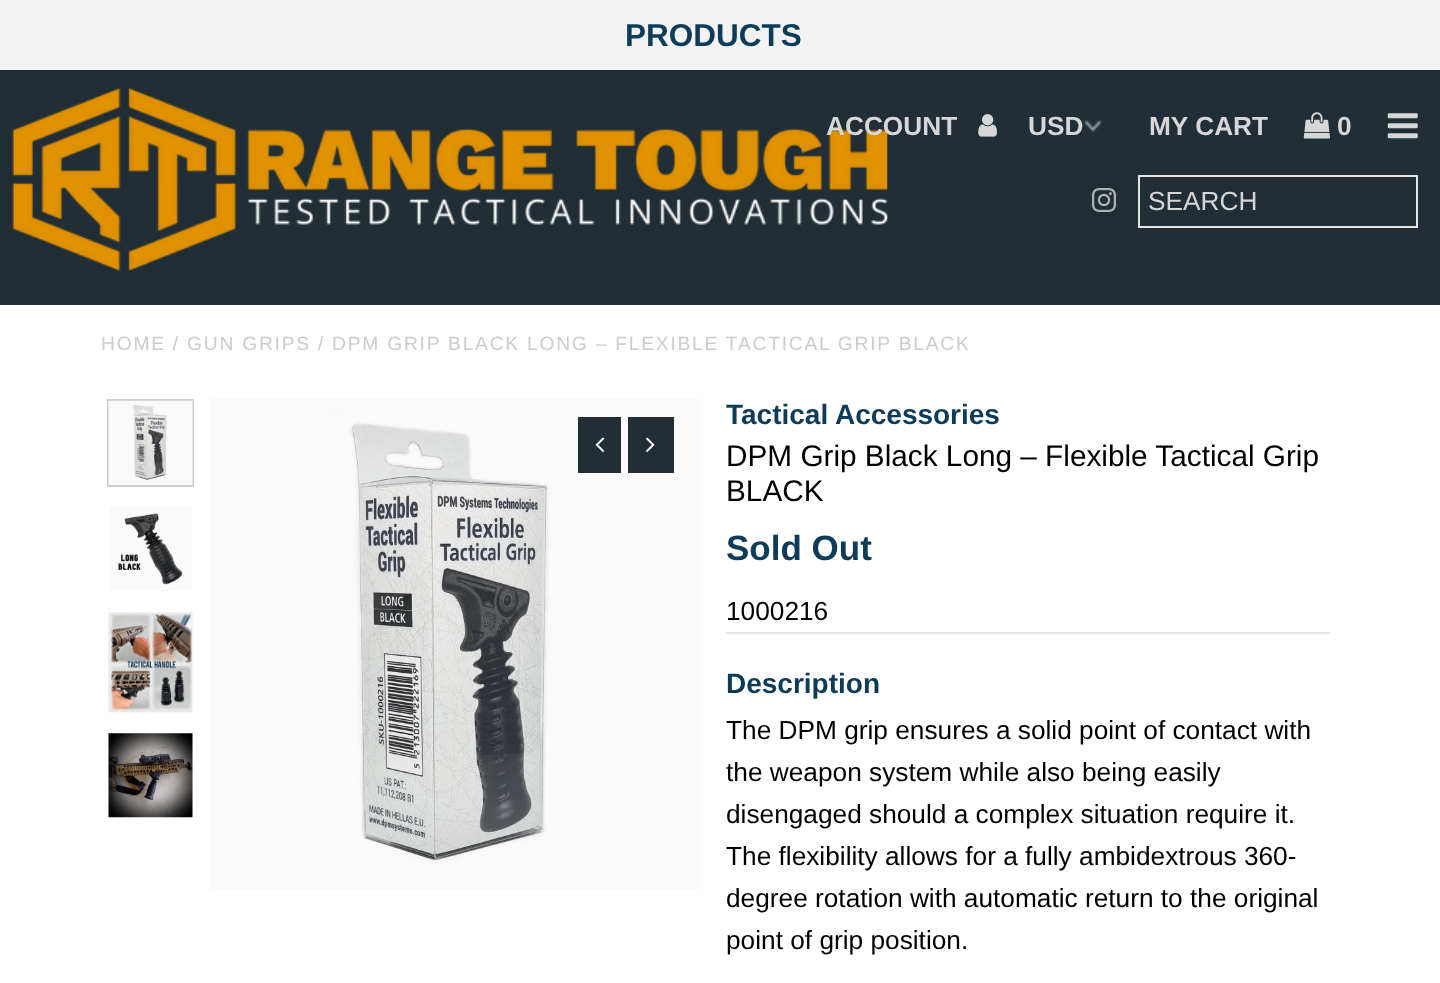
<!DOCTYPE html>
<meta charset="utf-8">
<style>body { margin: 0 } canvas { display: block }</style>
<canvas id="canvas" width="1440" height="983"></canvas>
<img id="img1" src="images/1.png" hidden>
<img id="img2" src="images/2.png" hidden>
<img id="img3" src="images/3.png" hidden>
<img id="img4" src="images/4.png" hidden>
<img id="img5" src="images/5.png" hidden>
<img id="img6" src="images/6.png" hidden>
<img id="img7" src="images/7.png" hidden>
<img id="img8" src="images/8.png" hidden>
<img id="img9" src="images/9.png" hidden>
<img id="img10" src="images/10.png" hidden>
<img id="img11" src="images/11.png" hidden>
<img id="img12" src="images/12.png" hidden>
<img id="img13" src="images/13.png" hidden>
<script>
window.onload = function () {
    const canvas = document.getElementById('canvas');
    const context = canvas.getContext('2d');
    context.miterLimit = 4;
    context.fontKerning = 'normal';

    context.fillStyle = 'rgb(255, 255, 255)';
    context.fillRect(0, 0, 1440, 983);
    context.fillStyle = 'rgb(242, 242, 242)';
    context.fillRect(0, 0, 1440, 70);
    context.fillStyle = 'rgb(33, 46, 54)';
    context.fillRect(0, 70, 1440, 235);
    context.drawImage(document.getElementById('img1'), 12, 87, 876, 184);
    context.drawImage(document.getElementById('img2'), 978, 114, 19, 23);
    context.drawImage(document.getElementById('img3'), 1084, 120, 18, 12);
    context.drawImage(document.getElementById('img4'), 1303, 112, 27, 27);
    context.drawImage(document.getElementById('img5'), 1387, 113, 31, 26);
    context.drawImage(document.getElementById('img6'), 1092, 188, 24, 24);
    context.strokeStyle = 'rgb(229, 229, 229)';
    context.lineWidth = 2;
    context.strokeRect(1139, 176, 278, 51);
    context.strokeStyle = 'rgb(204, 204, 204)';
    context.strokeRect(108, 400, 85, 86);
    context.drawImage(document.getElementById('img7'), 108, 400, 85, 85);
    context.drawImage(document.getElementById('img8'), 109, 506, 83, 85);
    context.drawImage(document.getElementById('img9'), 108, 612, 85, 101);
    context.drawImage(document.getElementById('img10'), 108, 733, 85, 85);
    context.drawImage(document.getElementById('img11'), 209, 399, 491, 490);
    context.fillRect(578, 417, 43, 56);
    context.drawImage(document.getElementById('img12'), 595, 437, 10, 15);
    context.fillRect(628, 417, 46, 56);
    context.drawImage(document.getElementById('img13'), 646, 437, 9, 16);
    context.fillStyle = 'rgb(229, 229, 229)';
    context.fillRect(726, 632, 604, 2);
    context.font = 'bold 31.5px Liberation Sans';
    context.fillStyle = 'rgb(14, 60, 88)';
    context.fillText('PRODUCTS', 625, 46);
    context.font = 'bold 26.25px Liberation Sans';
    context.fillStyle = 'rgb(215, 215, 215)';
    context.fillText('ACCOUNT', 826, 135);
    context.fillText('USD', 1028, 135);
    context.fillText('MY CART', 1149, 135);
    context.fillText('0', 1337, 135);
    context.font = '26.25px Liberation Sans';
    context.fillText('SEARCH', 1148, 210);
    context.letterSpacing = '1.75px';
    context.font = '19.25px Liberation Sans';
    context.fillStyle = 'rgb(204, 204, 204)';
    context.fillText('HOME / GUN GRIPS / DPM GRIP BLACK LONG – FLEXIBLE TACTICAL GRIP BLACK', 101, 350);
    context.letterSpacing = '0px';
    context.font = 'bold 28px Liberation Sans';
    context.fillStyle = 'rgb(14, 60, 88)';
    context.fillText('Tactical Accessories', 726, 424);
    context.font = '29.75px Liberation Sans';
    context.fillStyle = 'rgb(0, 0, 0)';
    context.fillText('DPM Grip Black Long – Flexible Tactical Grip', 726, 466);
    context.fillText('BLACK', 726, 501);
    context.font = 'bold 35px Liberation Sans';
    context.fillStyle = 'rgb(14, 60, 88)';
    context.fillText('Sold Out', 726, 560);
    context.font = '26.25px Liberation Sans';
    context.fillStyle = 'rgb(0, 0, 0)';
    context.fillText('1000216', 726, 620);
    context.font = 'bold 28px Liberation Sans';
    context.fillStyle = 'rgb(14, 60, 88)';
    context.fillText('Description', 726, 693);
    context.font = '26.25px Liberation Sans';
    context.fillStyle = 'rgb(0, 0, 0)';
    context.fillText('The DPM grip ensures a solid point of contact with', 726, 739);
    context.fillText('the weapon system while also being easily', 726, 781);
    context.fillText('disengaged should a complex situation require it.', 726, 823);
    context.fillText('The flexibility allows for a fully ambidextrous 360-', 726, 865);
    context.fillText('degree rotation with automatic return to the original', 726, 907);
    context.fillText('point of grip position.', 726, 949);
};
</script>
